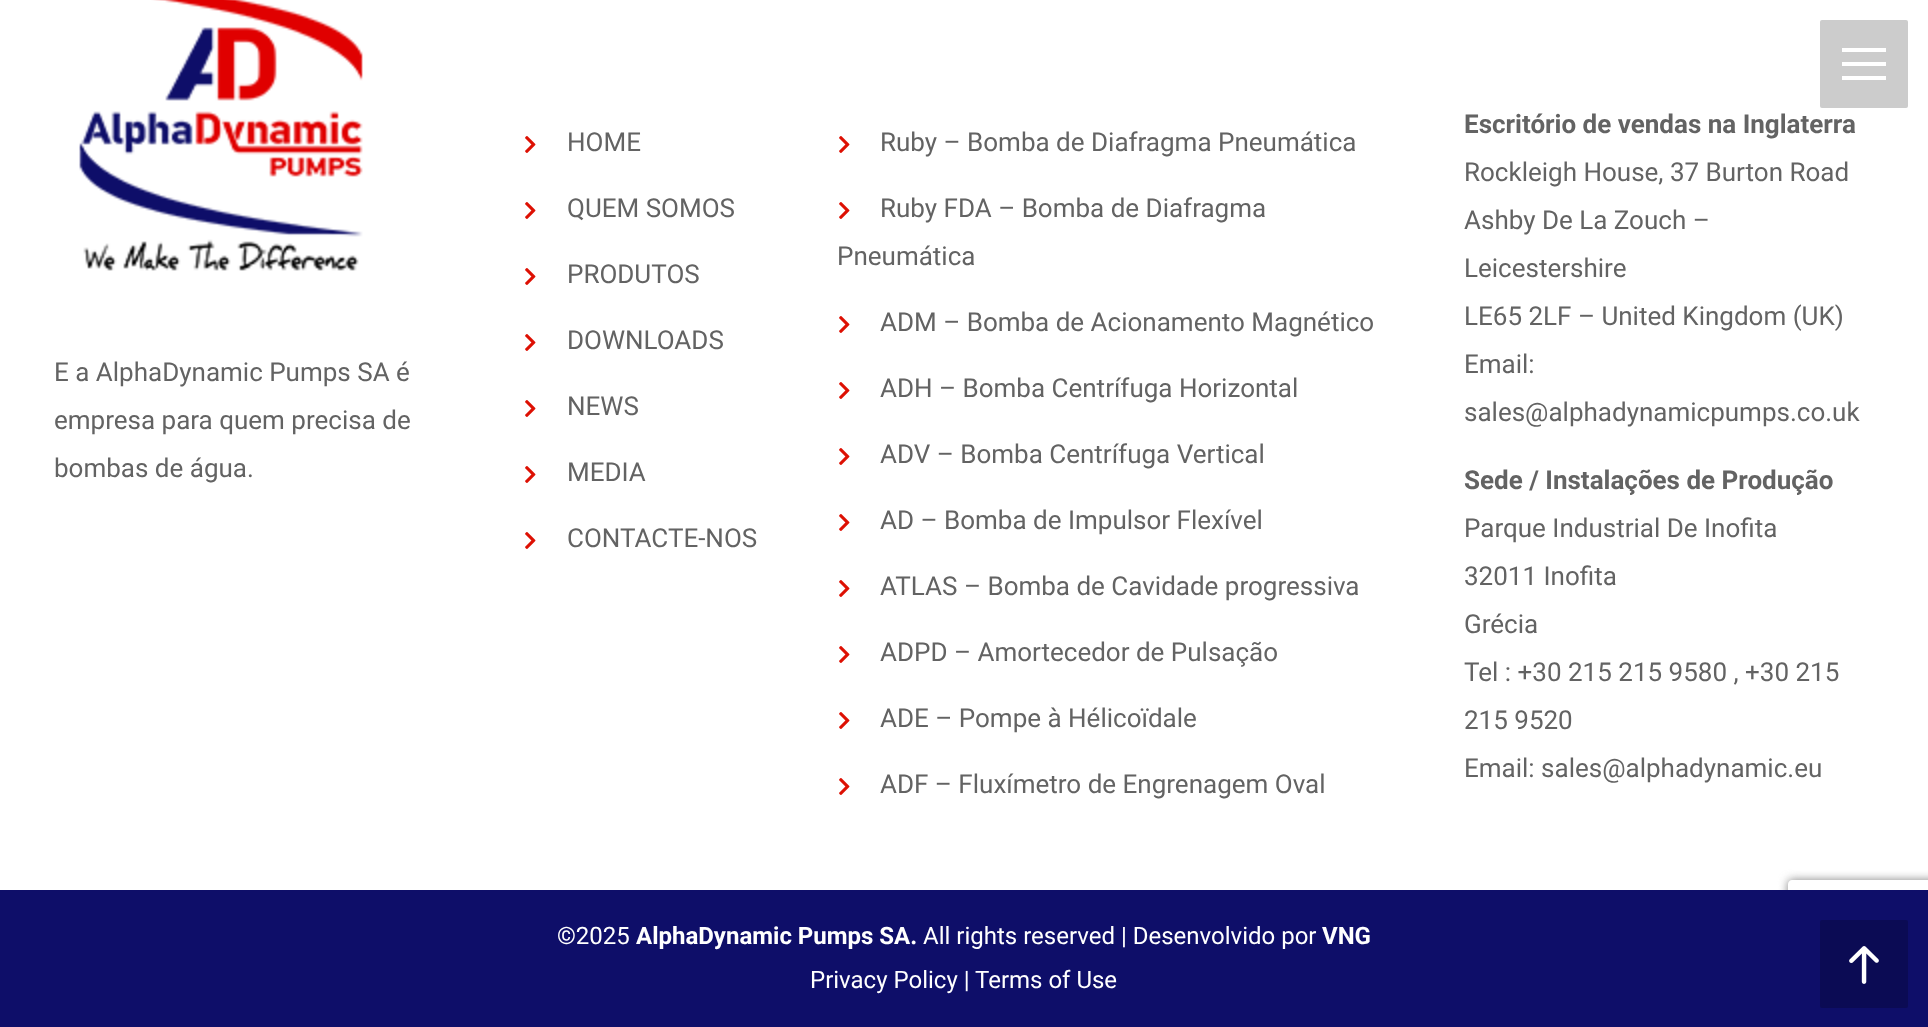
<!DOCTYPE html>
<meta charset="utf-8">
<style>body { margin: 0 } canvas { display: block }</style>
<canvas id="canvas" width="1928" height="1027"></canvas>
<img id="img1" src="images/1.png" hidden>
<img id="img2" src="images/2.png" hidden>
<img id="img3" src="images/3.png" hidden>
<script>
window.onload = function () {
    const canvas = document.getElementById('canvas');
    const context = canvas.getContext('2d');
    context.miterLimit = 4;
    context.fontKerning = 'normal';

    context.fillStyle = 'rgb(255, 255, 255)';
    context.fillRect(0, 0, 1928, 1027);
    context.fillStyle = 'rgb(204, 204, 204)';
    context.beginPath();
    context.roundRect(1820, 20, 88, 88, 2);
    context.fill();
    context.fillStyle = 'rgb(255, 255, 255)';
    context.fillRect(1842, 62, 44, 4);
    context.fillRect(1842, 48, 44, 4);
    context.fillRect(1842, 76, 44, 4);
    context.drawImage(document.getElementById('img1'), 79, 0, 284, 271);
    context.drawImage(document.getElementById('img2'), 525, 136, 11, 17);
    context.drawImage(document.getElementById('img2'), 525, 202, 11, 17);
    context.drawImage(document.getElementById('img2'), 525, 268, 11, 17);
    context.drawImage(document.getElementById('img2'), 525, 334, 11, 17);
    context.drawImage(document.getElementById('img2'), 525, 400, 11, 17);
    context.drawImage(document.getElementById('img2'), 525, 466, 11, 17);
    context.drawImage(document.getElementById('img2'), 525, 532, 11, 17);
    context.drawImage(document.getElementById('img2'), 839, 136, 11, 17);
    context.drawImage(document.getElementById('img2'), 839, 202, 11, 17);
    context.drawImage(document.getElementById('img2'), 839, 316, 11, 17);
    context.drawImage(document.getElementById('img2'), 839, 382, 11, 17);
    context.drawImage(document.getElementById('img2'), 839, 448, 11, 17);
    context.drawImage(document.getElementById('img2'), 839, 514, 11, 17);
    context.drawImage(document.getElementById('img2'), 839, 580, 11, 17);
    context.drawImage(document.getElementById('img2'), 839, 646, 11, 17);
    context.drawImage(document.getElementById('img2'), 839, 712, 11, 17);
    context.drawImage(document.getElementById('img2'), 839, 778, 11, 17);
    context.save();
    context.beginPath();
    context.moveTo(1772, 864);
    context.lineTo(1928, 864);
    context.lineTo(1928, 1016);
    context.lineTo(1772, 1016);
    context.closePath();
    context.moveTo(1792, 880);
    context.lineTo(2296, 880);
    context.bezierCurveTo(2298, 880, 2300, 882, 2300, 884);
    context.lineTo(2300, 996);
    context.bezierCurveTo(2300, 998, 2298, 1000, 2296, 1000);
    context.lineTo(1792, 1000);
    context.bezierCurveTo(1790, 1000, 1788, 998, 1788, 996);
    context.lineTo(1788, 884);
    context.bezierCurveTo(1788, 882, 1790, 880, 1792, 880);
    context.closePath();
    context.clip('evenodd');
    context.fillStyle = 'rgb(128, 128, 128)';
    context.filter = 'blur(5px)';
    context.beginPath();
    context.roundRect(1788, 880, 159, 120, 4);
    context.fill();
    context.filter = 'none';
    context.restore();
    context.fillStyle = 'rgb(14, 14, 105)';
    context.fillRect(0, 890, 1928, 137);
    context.fillStyle = 'rgb(11, 11, 84)';
    context.beginPath();
    context.roundRect(1820, 920, 88, 88, 2);
    context.fill();
    context.drawImage(document.getElementById('img3'), 1849, 946, 30, 38);
    context.font = '26px Roboto';
    context.fillStyle = 'rgb(99, 99, 99)';
    context.fillText('E a AlphaDynamic Pumps SA é', 54, 381);
    context.fillText('empresa para quem precisa de', 54, 429);
    context.fillText('bombas de água.', 54, 477);
    context.fillText('HOME', 567, 151);
    context.fillText('QUEM SOMOS', 567, 217);
    context.fillText('PRODUTOS', 567, 283);
    context.fillText('DOWNLOADS', 567, 349);
    context.fillText('NEWS', 567, 415);
    context.fillText('MEDIA', 567, 481);
    context.fillText('CONTACTE-NOS', 567, 547);
    context.fillText('Ruby – Bomba de Diafragma Pneumática', 880, 151);
    context.fillText('Ruby FDA – Bomba de Diafragma', 880, 217);
    context.fillText('Pneumática', 837, 265);
    context.fillText('ADM – Bomba de Acionamento Magnético', 880, 331);
    context.fillText('ADH – Bomba Centrífuga Horizontal', 880, 397);
    context.fillText('ADV – Bomba Centrífuga Vertical', 880, 463);
    context.fillText('AD – Bomba de Impulsor Flexível', 880, 529);
    context.fillText('ATLAS – Bomba de Cavidade progressiva', 880, 595);
    context.fillText('ADPD – Amortecedor de Pulsação', 880, 661);
    context.fillText('ADE – Pompe à Hélicoïdale', 880, 727);
    context.fillText('ADF – Fluxímetro de Engrenagem Oval', 880, 793);
    context.font = 'bold 26px Roboto';
    context.fillText('Escritório de vendas na Inglaterra', 1464, 133);
    context.font = '26px Roboto';
    context.fillText('Rockleigh House, 37 Burton Road', 1464, 181);
    context.fillText('Ashby De La Zouch –', 1464, 229);
    context.fillText('Leicestershire', 1464, 277);
    context.fillText('LE65 2LF – United Kingdom (UK)', 1464, 325);
    context.fillText('Email:', 1464, 373);
    context.fillText('sales@alphadynamicpumps.co.uk', 1464, 421);
    context.font = 'bold 26px Roboto';
    context.fillText('Sede / Instalações de Produção', 1464, 489);
    context.font = '26px Roboto';
    context.fillText('Parque Industrial De Inofita', 1464, 537);
    context.fillText('32011 Inofita', 1464, 585);
    context.fillText('Grécia', 1464, 633);
    context.fillText('Tel : +30 215 215 9580 , +30 215', 1464, 681);
    context.fillText('215 9520', 1464, 729);
    context.fillText('Email: sales@alphadynamic.eu', 1464, 777);
    context.font = '24px Roboto';
    context.fillStyle = 'rgb(255, 255, 255)';
    context.fillText('©2025', 557, 944);
    context.font = 'bold 24px Roboto';
    context.fillText('AlphaDynamic Pumps SA.', 636, 944);
    context.font = '24px Roboto';
    context.fillText('All rights reserved | Desenvolvido por', 923, 944);
    context.font = 'bold 24px Roboto';
    context.fillText('VNG', 1322, 944);
    context.font = '24px Roboto';
    context.fillText('Privacy Policy |', 810, 988);
    context.fillText('Terms of Use', 975, 988);
};
</script>
